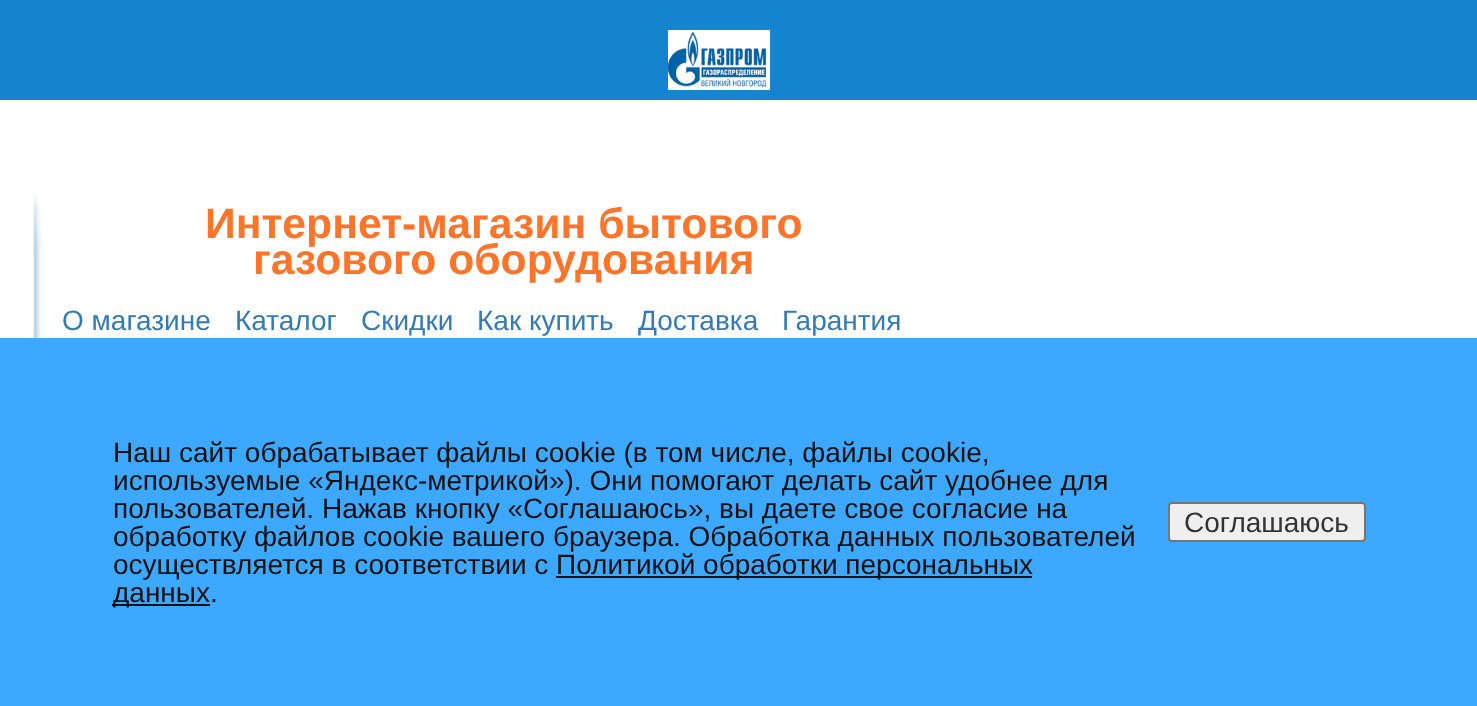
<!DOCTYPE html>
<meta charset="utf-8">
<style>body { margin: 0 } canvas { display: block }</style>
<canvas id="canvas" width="1477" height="706"></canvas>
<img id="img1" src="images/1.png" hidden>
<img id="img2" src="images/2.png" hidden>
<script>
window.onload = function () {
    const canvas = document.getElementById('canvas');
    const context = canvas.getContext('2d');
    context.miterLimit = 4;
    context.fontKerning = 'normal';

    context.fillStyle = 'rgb(255, 255, 255)';
    context.fillRect(0, 0, 1477, 706);
    context.fillStyle = 'rgb(20, 132, 206)';
    context.fillRect(0, 0, 1477, 100);
    context.drawImage(document.getElementById('img1'), 668, 30, 103, 60);
    context.drawImage(document.getElementById('img2'), 33, 193, 10, 145);
    context.fillStyle = 'rgb(61, 168, 255)';
    context.fillRect(0, 338, 1477, 368);
    context.fillStyle = 'rgb(17, 17, 17)';
    context.fillRect(556, 576, 476, 2);
    context.fillRect(112, 604, 98, 2);
    context.fillStyle = 'rgb(239, 239, 239)';
    context.beginPath();
    context.roundRect(1169, 503, 196, 38, 3);
    context.fill();
    context.strokeStyle = 'rgb(118, 118, 118)';
    context.lineWidth = 2;
    context.stroke();
    context.font = 'bold 42.7px Liberation Sans';
    context.fillStyle = 'rgb(253, 117, 42)';
    context.fillText('Интернет-магазин бытового', 205, 238);
    context.fillText('газового оборудования', 253, 274);
    context.font = '28px Liberation Sans';
    context.fillStyle = 'rgb(51, 122, 183)';
    context.fillText('О магазине', 62, 330);
    context.fillText('Каталог', 235, 330);
    context.fillText('Скидки', 361, 330);
    context.fillText('Как купить', 477, 330);
    context.fillText('Доставка', 638, 330);
    context.fillText('Гарантия', 782, 330);
    context.fillStyle = 'rgb(17, 17, 17)';
    context.fillText('Наш сайт обрабатывает файлы cookie (в том числе, файлы cookie,', 113, 462);
    context.fillText('используемые «Яндекс-метрикой»). Они помогают делать сайт удобнее для', 113, 490);
    context.fillText('пользователей. Нажав кнопку «Соглашаюсь», вы даете свое согласие на', 113, 518);
    context.fillText('обработку файлов cookie вашего браузера. Обработка данных пользователей', 113, 546);
    context.fillText('осуществляется в соответствии с', 113, 574);
    context.fillText('Политикой обработки персональных', 556, 574);
    context.fillText('данных.', 113, 602);
    context.fillStyle = 'rgb(51, 51, 51)';
    context.fillText('Соглашаюсь', 1184, 532);
};
</script>
